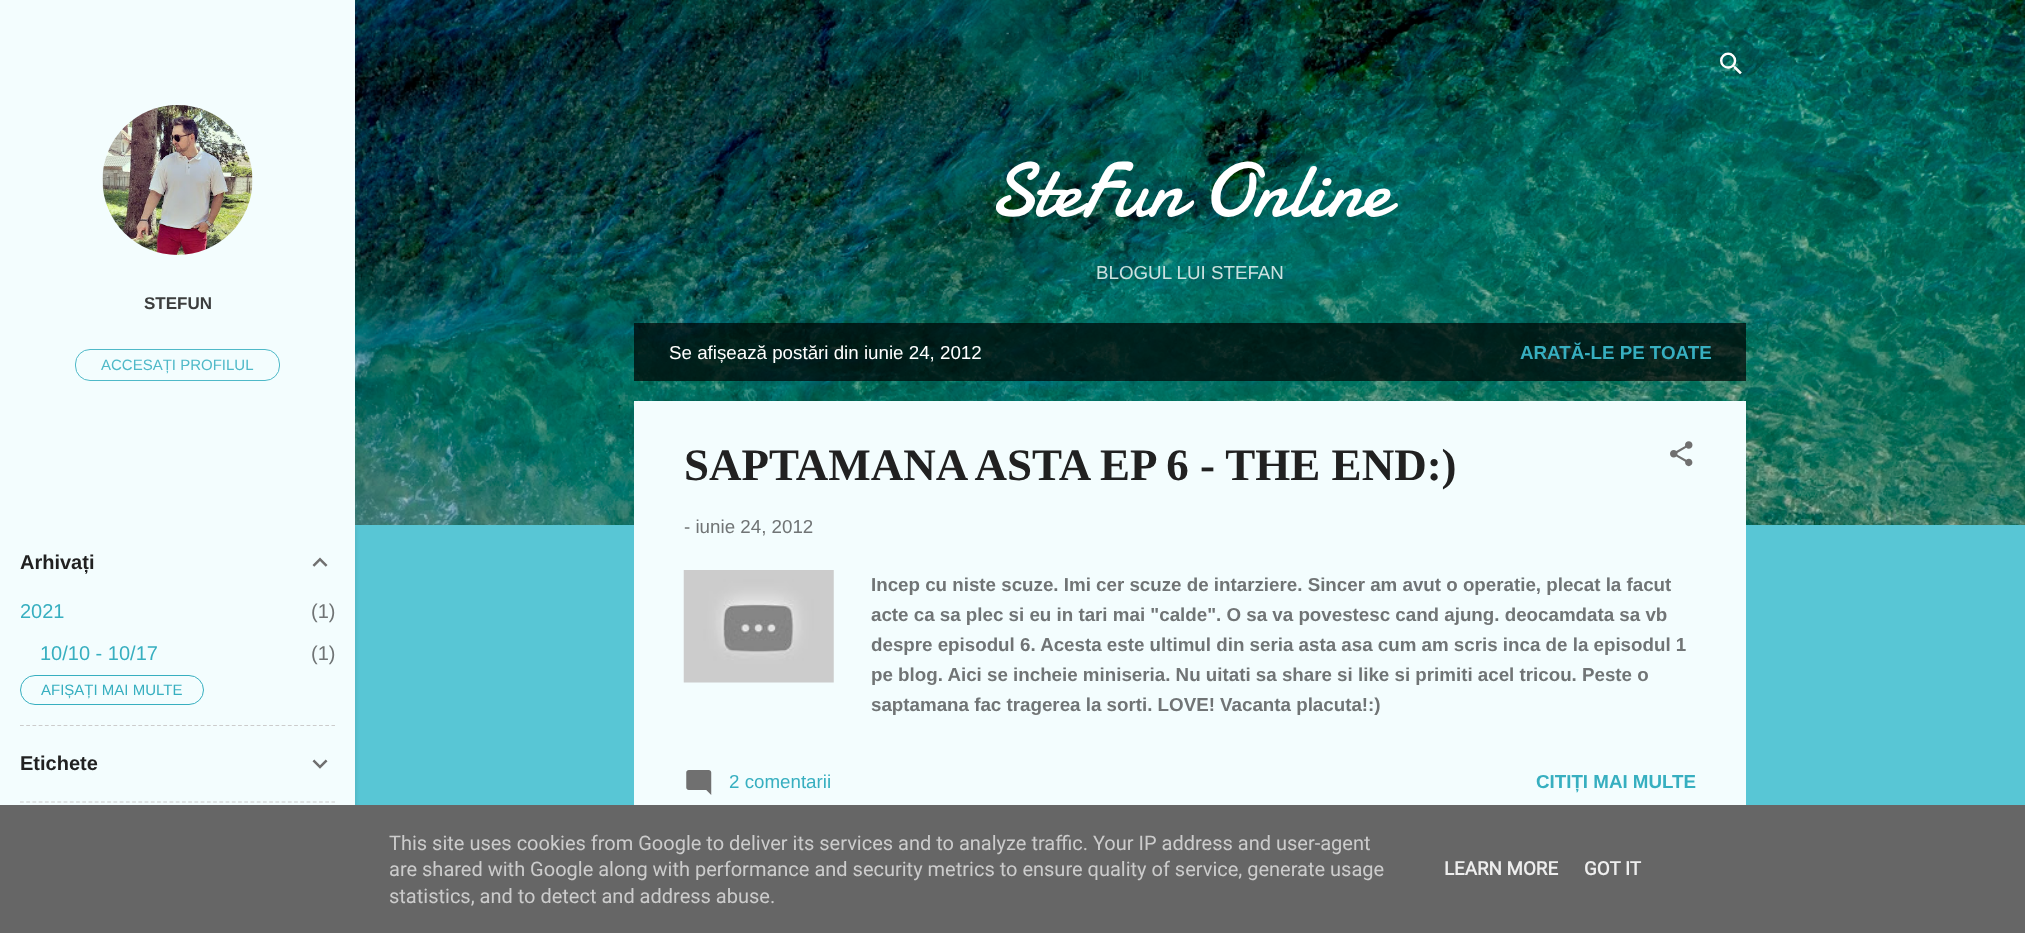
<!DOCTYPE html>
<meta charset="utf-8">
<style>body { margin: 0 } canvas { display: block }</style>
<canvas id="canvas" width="2025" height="933"></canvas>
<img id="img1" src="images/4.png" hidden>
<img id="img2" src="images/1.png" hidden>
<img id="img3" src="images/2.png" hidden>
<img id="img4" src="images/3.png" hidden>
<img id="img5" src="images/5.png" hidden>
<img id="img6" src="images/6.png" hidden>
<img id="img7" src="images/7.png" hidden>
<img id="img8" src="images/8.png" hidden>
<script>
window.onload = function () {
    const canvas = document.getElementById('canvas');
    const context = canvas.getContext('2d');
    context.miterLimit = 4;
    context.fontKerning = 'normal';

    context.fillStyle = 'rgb(88, 198, 213)';
    context.fillRect(0, 0, 2025, 933);
    context.drawImage(document.getElementById('img1'), 355, 0, 1670, 525);
    context.fillStyle = 'rgba(0, 0, 0, 0.1)';
    context.filter = 'blur(2px)';
    context.beginPath();
    context.rect(1, 526, 355, 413);
    context.fill();
    context.filter = 'none';
    context.fillStyle = 'rgb(243, 253, 254)';
    context.fillRect(0, 0, 355, 805);
    context.drawImage(document.getElementById('img2'), 102, 105, 151, 150);
    context.beginPath();
    context.roundRect(75.5, 349.5, 204, 31, 14.5);
    context.strokeStyle = 'rgb(79, 185, 200)';
    context.stroke();
    context.drawImage(document.getElementById('img3'), 312, 557, 16, 10);
    context.beginPath();
    context.roundRect(20.5, 675.5, 183, 29, 14.5);
    context.strokeStyle = 'rgb(55, 175, 192)';
    context.stroke();
    context.beginPath();
    context.moveTo(20, 725.5);
    context.lineTo(335, 725.5);
    context.strokeStyle = 'rgb(204, 204, 204)';
    context.lineWidth = 1.2;
    context.setLineDash([3.75, 2.48]);
    context.stroke();
    context.drawImage(document.getElementById('img4'), 312, 759, 16, 10);
    context.beginPath();
    context.moveTo(20, 802);
    context.lineTo(335, 802);
    context.stroke();
    context.drawImage(document.getElementById('img5'), 1720, 52, 22, 23);
    context.fillStyle = 'rgba(0, 0, 0, 0.7)';
    context.fillRect(634, 323, 1112, 58);
    context.fillStyle = 'rgb(243, 253, 254)';
    context.fillRect(634, 401, 1112, 404);
    context.drawImage(document.getElementById('img6'), 1670, 441, 23, 26);
    context.drawImage(document.getElementById('img7'), 683, 570, 151, 113);
    context.drawImage(document.getElementById('img8'), 686, 770, 26, 25);
    context.fillStyle = 'rgb(102, 102, 102)';
    context.fillRect(0, 805, 2025, 128);
    context.font = 'bold 17px Liberation Sans';
    context.fillStyle = 'rgb(60, 62, 62)';
    context.fillText('STEFUN', 144, 309);
    context.font = '15px Liberation Sans';
    context.fillStyle = 'rgb(79, 185, 200)';
    context.fillText('ACCESAȚI PROFILUL', 101, 370);
    context.font = 'bold 20px Liberation Sans';
    context.fillStyle = 'rgb(33, 33, 33)';
    context.fillText('Arhivați', 20, 569);
    context.font = '20px Liberation Sans';
    context.fillStyle = 'rgb(55, 175, 192)';
    context.fillText('2021', 20, 618);
    context.fillStyle = 'rgb(112, 116, 117)';
    context.fillText('(1)', 311, 618);
    context.fillStyle = 'rgb(55, 175, 192)';
    context.fillText('10/10 - 10/17', 40, 660);
    context.fillStyle = 'rgb(112, 116, 117)';
    context.fillText('(1)', 311, 660);
    context.font = '15px Liberation Sans';
    context.fillStyle = 'rgb(55, 175, 192)';
    context.fillText('AFIȘAȚI MAI MULTE', 41, 695);
    context.font = 'bold 20px Liberation Sans';
    context.fillStyle = 'rgb(33, 33, 33)';
    context.fillText('Etichete', 20, 770);
    context.font = '77.5px Damion';
    context.fillStyle = 'rgb(255, 255, 255)';
    context.fillText('SteFun Online', 989, 216);
    context.font = '18.75px Liberation Sans';
    context.fillStyle = 'rgb(204, 225, 224)';
    context.fillText('BLOGUL LUI STEFAN', 1096, 279);
    context.fillStyle = 'rgb(255, 255, 255)';
    context.fillText('Se afișează postări din iunie 24, 2012', 669, 359);
    context.font = 'bold 18.75px Liberation Sans';
    context.fillStyle = 'rgb(55, 175, 192)';
    context.fillText('ARATĂ-LE PE TOATE', 1520, 359);
    context.font = 'bold 45px Liberation Serif';
    context.fillStyle = 'rgb(33, 33, 33)';
    context.fillText('SAPTAMANA ASTA EP 6 - THE END:)', 684, 480);
    context.font = '18.75px Liberation Sans';
    context.fillStyle = 'rgb(112, 116, 117)';
    context.fillText('- iunie 24, 2012', 684, 533);
    context.font = 'bold 18.75px Liberation Sans';
    context.fillText('Incep cu niste scuze. Imi cer scuze de intarziere. Sincer am avut o operatie, plecat la facut', 871, 591);
    context.fillText('acte ca sa plec si eu in tari mai "calde". O sa va povestesc cand ajung. deocamdata sa vb', 871, 621);
    context.fillText('despre episodul 6. Acesta este ultimul din seria asta asa cum am scris inca de la episodul 1', 871, 651);
    context.fillText('pe blog. Aici se incheie miniseria. Nu uitati sa share si like si primiti acel tricou. Peste o', 871, 681);
    context.fillText('saptamana fac tragerea la sorti. LOVE! Vacanta placuta!:)', 871, 711);
    context.font = '18.75px Liberation Sans';
    context.fillStyle = 'rgb(55, 175, 192)';
    context.fillText('2 comentarii', 729, 788);
    context.font = 'bold 18.75px Liberation Sans';
    context.fillText('CITIȚI MAI MULTE', 1536, 788);
    context.font = '20px Roboto';
    context.fillStyle = 'rgb(204, 204, 204)';
    context.fillText('This site uses cookies from Google to deliver its services and to analyze traffic. Your IP address and user-agent', 389, 850);
    context.fillText('are shared with Google along with performance and security metrics to ensure quality of service, generate usage', 389, 876);
    context.fillText('statistics, and to detect and address abuse.', 389, 903);
    context.font = 'bold 18.75px Roboto';
    context.fillStyle = 'rgb(238, 238, 238)';
    context.fillText('LEARN MORE', 1444, 875);
    context.fillText('GOT IT', 1584, 875);
};
</script>
